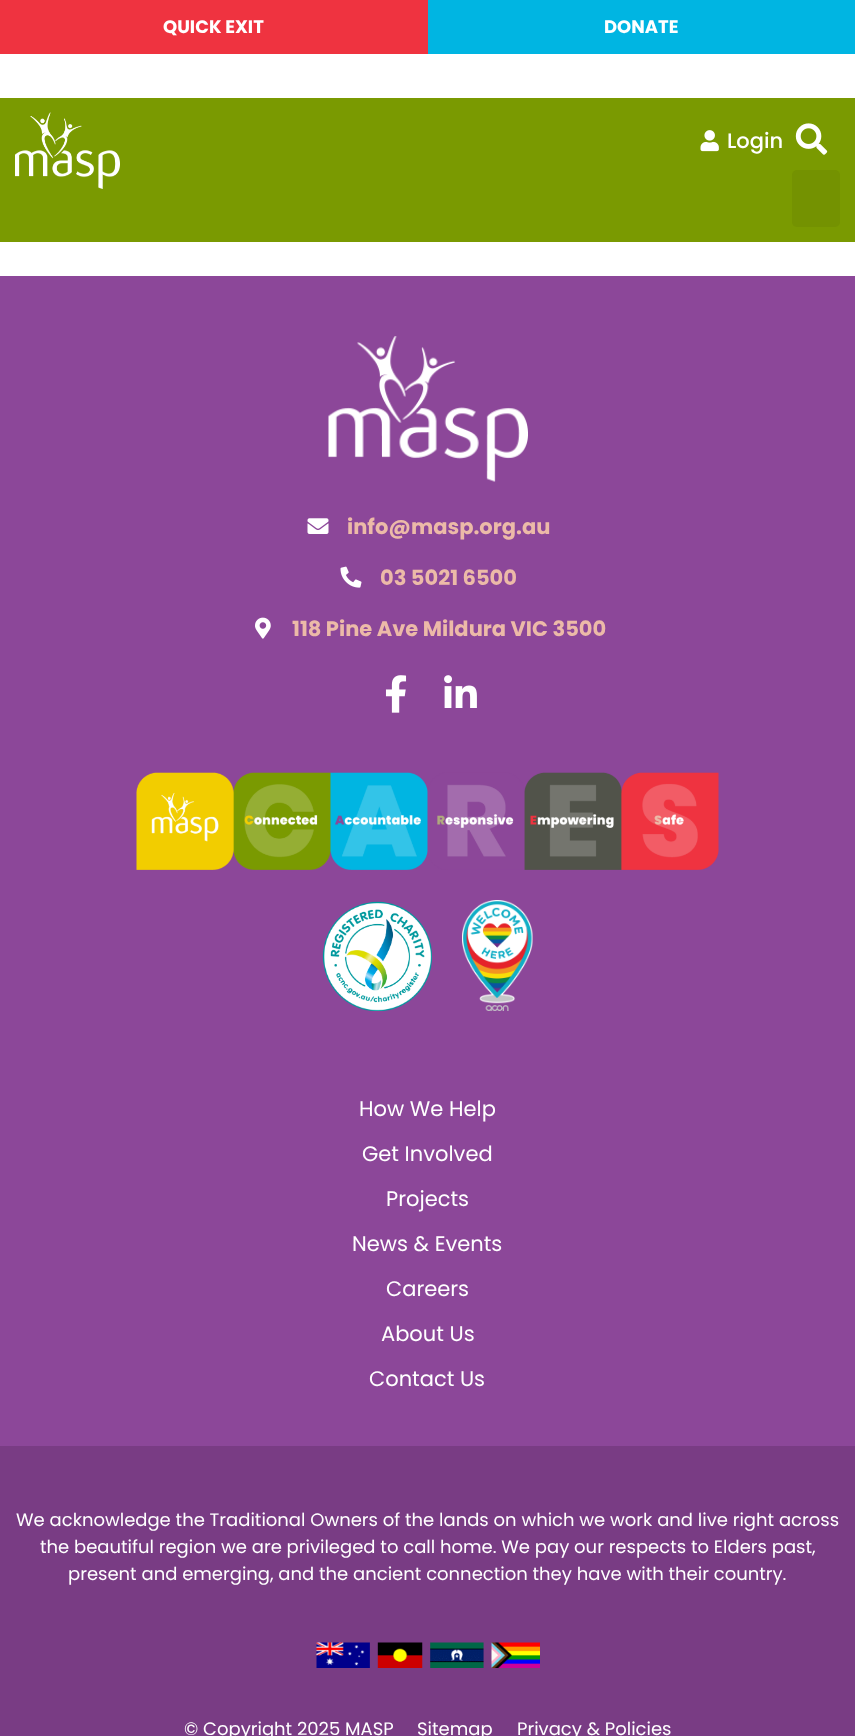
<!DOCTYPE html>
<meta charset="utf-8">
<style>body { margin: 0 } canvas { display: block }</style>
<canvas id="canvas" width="855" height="1736"></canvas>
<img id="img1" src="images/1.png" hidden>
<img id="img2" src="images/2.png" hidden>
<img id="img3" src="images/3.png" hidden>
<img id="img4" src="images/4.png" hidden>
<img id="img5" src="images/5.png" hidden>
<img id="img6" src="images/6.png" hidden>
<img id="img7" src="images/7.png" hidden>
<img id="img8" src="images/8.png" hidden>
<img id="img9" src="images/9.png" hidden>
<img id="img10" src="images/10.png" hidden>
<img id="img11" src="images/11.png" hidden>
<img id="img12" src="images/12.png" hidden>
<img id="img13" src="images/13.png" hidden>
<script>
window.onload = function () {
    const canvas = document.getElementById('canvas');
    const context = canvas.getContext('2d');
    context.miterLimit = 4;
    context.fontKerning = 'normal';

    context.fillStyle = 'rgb(255, 255, 255)';
    context.fillRect(0, 0, 855, 1736);
    context.fillStyle = 'rgb(239, 51, 64)';
    context.fillRect(0, 0, 428, 54);
    context.fillStyle = 'rgb(0, 181, 226)';
    context.fillRect(428, 0, 427, 54);
    context.fillStyle = 'rgb(122, 154, 1)';
    context.fillRect(0, 98, 855, 144);
    context.drawImage(document.getElementById('img1'), 15, 112, 105, 77);
    context.drawImage(document.getElementById('img2'), 700, 130, 19, 22);
    context.drawImage(document.getElementById('img3'), 795, 123, 33, 32);
    context.fillStyle = 'rgb(116, 146, 1)';
    context.beginPath();
    context.roundRect(792, 170, 48, 57, 5);
    context.fill();
    context.fillStyle = 'rgb(140, 71, 153)';
    context.fillRect(0, 276, 855, 1170);
    context.drawImage(document.getElementById('img4'), 328, 336, 200, 146);
    context.drawImage(document.getElementById('img5'), 307, 518, 22, 16);
    context.drawImage(document.getElementById('img6'), 340, 566, 22, 22);
    context.drawImage(document.getElementById('img7'), 255, 617, 16, 22);
    context.drawImage(document.getElementById('img8'), 385, 675, 22, 38);
    context.drawImage(document.getElementById('img9'), 444, 675, 33, 33);
    context.drawImage(document.getElementById('img10'), 136, 772, 583, 98);
    context.drawImage(document.getElementById('img11'), 322, 901, 110, 110);
    context.drawImage(document.getElementById('img12'), 462, 900, 71, 111);
    context.fillStyle = 'rgb(121, 60, 132)';
    context.fillRect(0, 1446, 855, 290);
    context.drawImage(document.getElementById('img13'), 316, 1642, 224, 26);
    context.font = 'bold 18px Poppins';
    context.fillStyle = 'rgb(255, 255, 255)';
    context.fillText('QUICK EXIT', 163, 33);
    context.fillText('DONATE', 604, 33);
    context.font = '500 21px Poppins';
    context.fillText('Login', 727, 148);
    context.font = 'bold 21px Poppins';
    context.fillStyle = 'rgb(236, 186, 168)';
    context.fillText('info@masp.org.au', 347, 534);
    context.fillText('03 5021 6500', 380, 585);
    context.fillText('118 Pine Ave Mildura VIC 3500', 292, 636);
    context.font = '21px Poppins';
    context.fillStyle = 'rgb(255, 255, 255)';
    context.fillText('How We Help', 359, 1116);
    context.fillText('Get Involved', 362, 1161);
    context.fillText('Projects', 386, 1206);
    context.fillText('News & Events', 352, 1251);
    context.fillText('Careers', 386, 1296);
    context.fillText('About Us', 381, 1341);
    context.fillText('Contact Us', 369, 1386);
    context.font = '18px Poppins';
    context.fillText('We acknowledge the Traditional Owners of the lands on which we work and live right across', 16, 1526);
    context.fillText('the beautiful region we are privileged to call home. We pay our respects to Elders past,', 40, 1553);
    context.fillText('present and emerging, and the ancient connection they have with their country.', 68, 1580);
    context.fillText('© Copyright 2025 MASP', 184, 1735);
    context.fillText('Sitemap', 417, 1735);
    context.fillText('Privacy & Policies', 517, 1735);
};
</script>
